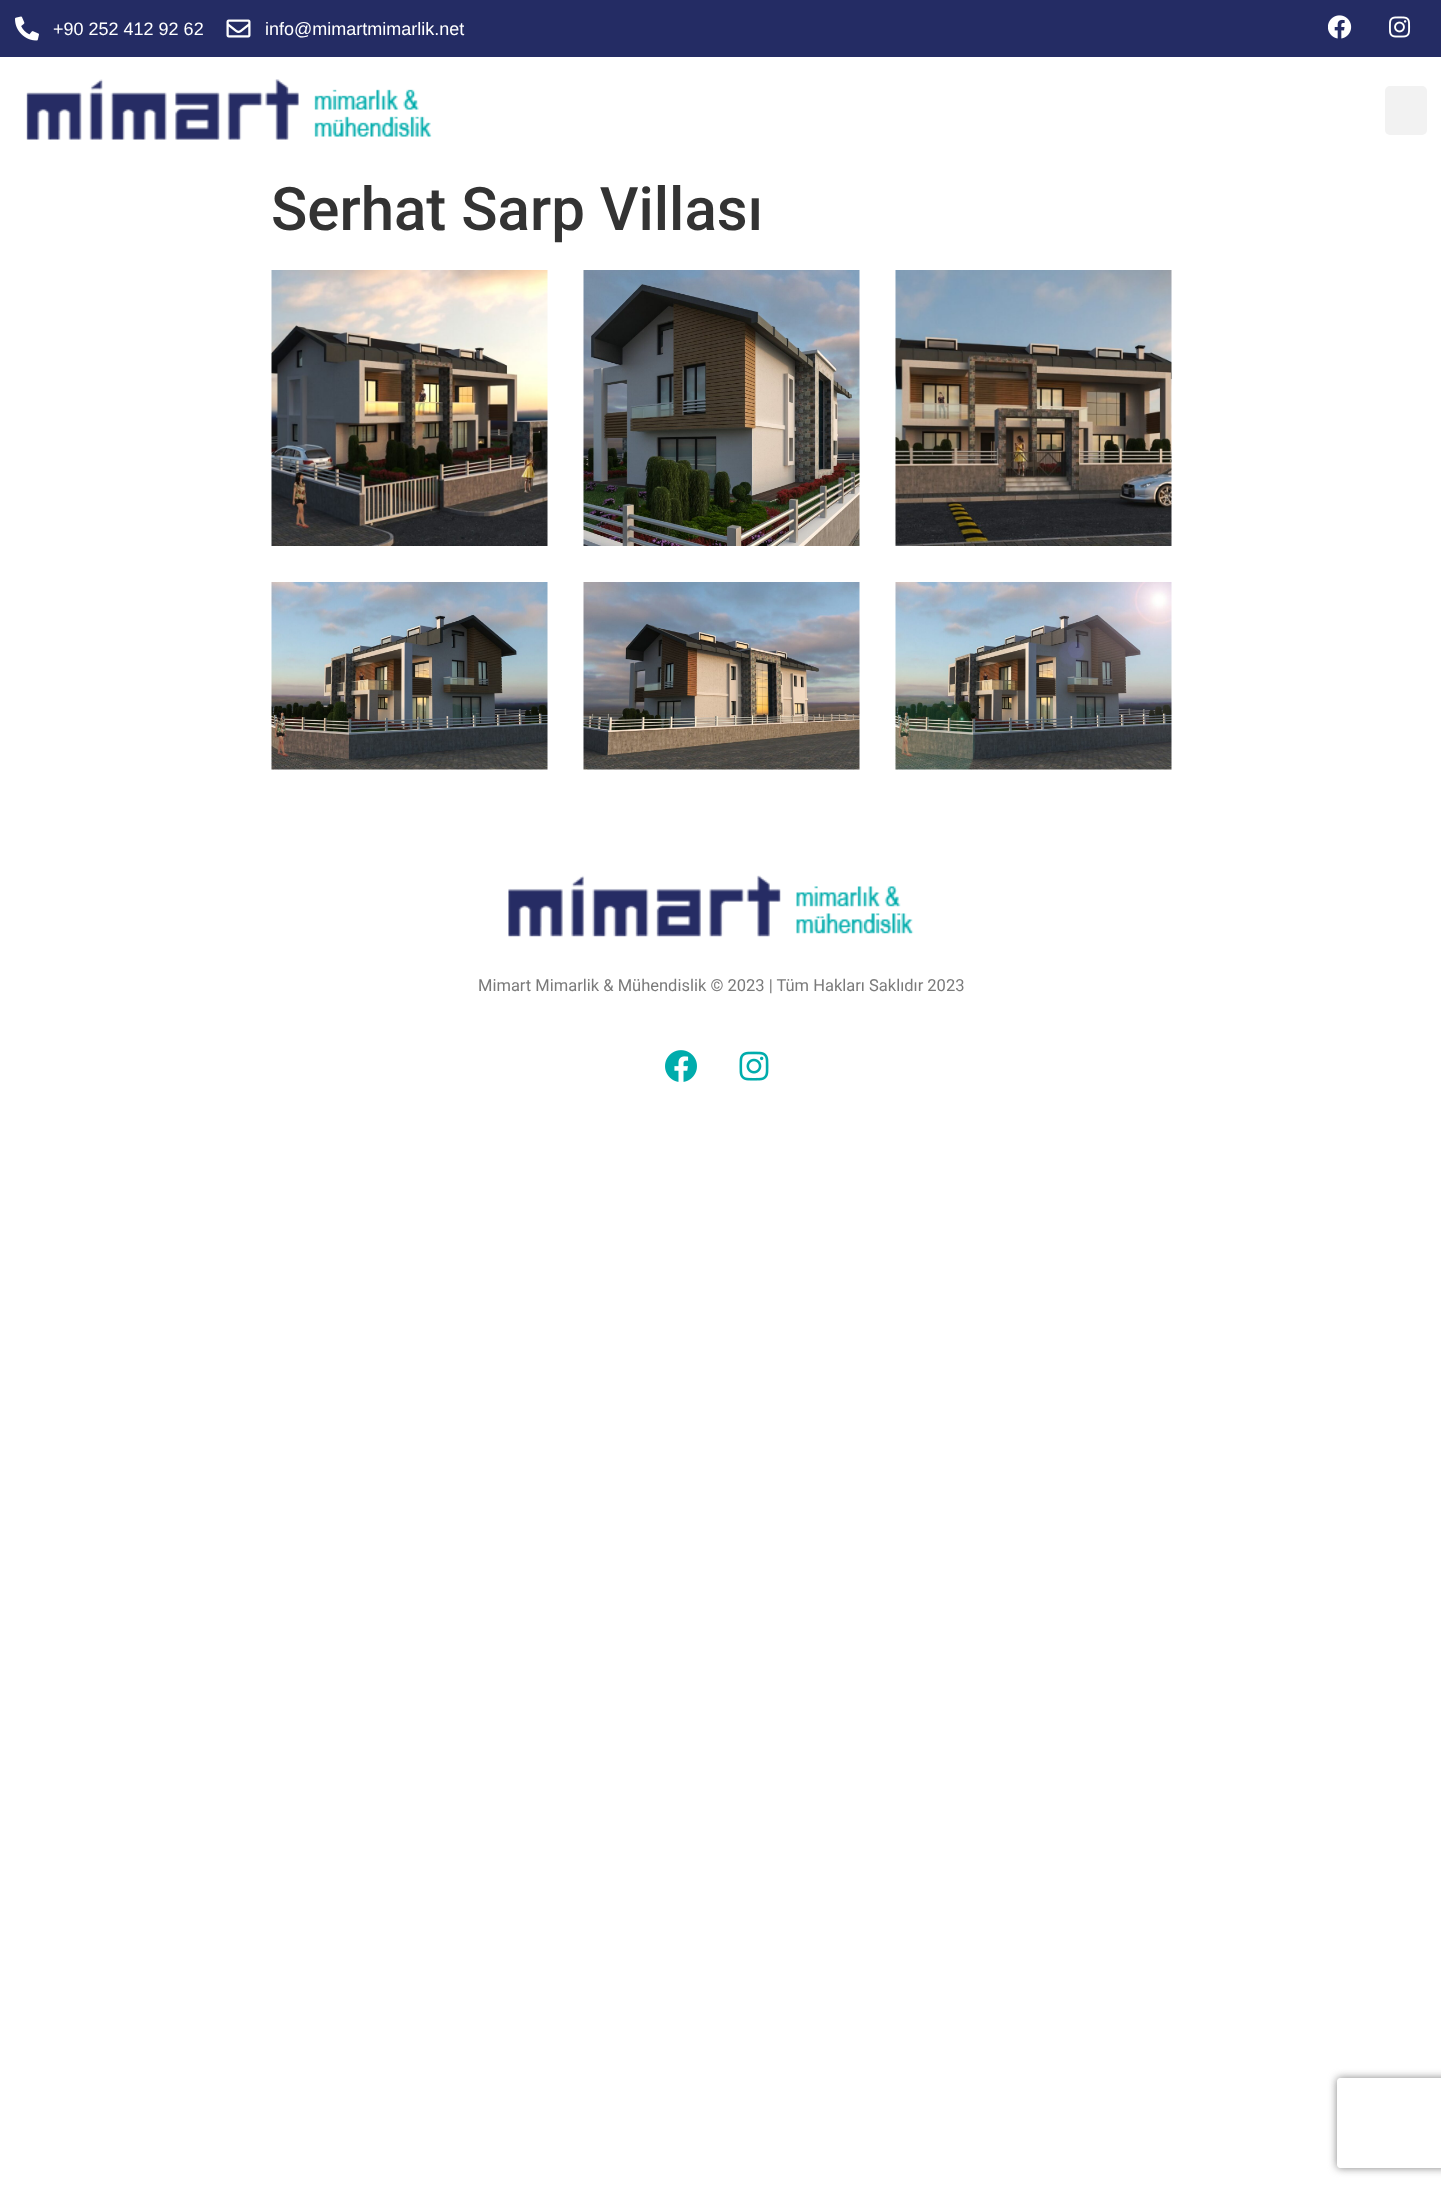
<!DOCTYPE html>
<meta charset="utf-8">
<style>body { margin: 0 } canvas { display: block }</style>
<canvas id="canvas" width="1441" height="2188"></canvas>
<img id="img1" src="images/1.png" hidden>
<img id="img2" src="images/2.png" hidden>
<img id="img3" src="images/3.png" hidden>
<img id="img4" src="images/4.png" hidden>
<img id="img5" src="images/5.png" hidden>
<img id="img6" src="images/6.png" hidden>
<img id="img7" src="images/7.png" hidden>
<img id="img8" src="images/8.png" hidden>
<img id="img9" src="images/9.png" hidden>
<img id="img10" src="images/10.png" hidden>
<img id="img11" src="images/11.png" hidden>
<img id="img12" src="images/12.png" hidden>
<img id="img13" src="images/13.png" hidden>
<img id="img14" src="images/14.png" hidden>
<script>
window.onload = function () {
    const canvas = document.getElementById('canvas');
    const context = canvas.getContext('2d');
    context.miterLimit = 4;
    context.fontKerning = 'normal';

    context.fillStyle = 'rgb(255, 255, 255)';
    context.fillRect(0, 0, 1441, 2188);
    context.fillStyle = 'rgb(36, 44, 100)';
    context.fillRect(0, 0, 1441, 57);
    context.drawImage(document.getElementById('img1'), 15, 16, 24, 25);
    context.drawImage(document.getElementById('img2'), 226, 19, 25, 19);
    context.drawImage(document.getElementById('img3'), 1328, 15, 24, 24);
    context.drawImage(document.getElementById('img4'), 1389, 16, 22, 22);
    context.drawImage(document.getElementById('img5'), 26, 79, 406, 61);
    context.fillStyle = 'rgb(242, 242, 242)';
    context.beginPath();
    context.roundRect(1385, 86, 42, 49, 5);
    context.fill();
    context.drawImage(document.getElementById('img6'), 271, 270, 277, 276);
    context.drawImage(document.getElementById('img7'), 583, 270, 277, 276);
    context.drawImage(document.getElementById('img8'), 895, 270, 277, 276);
    context.drawImage(document.getElementById('img9'), 271, 582, 277, 188);
    context.drawImage(document.getElementById('img10'), 583, 582, 277, 188);
    context.drawImage(document.getElementById('img11'), 895, 582, 277, 188);
    context.drawImage(document.getElementById('img12'), 508, 875, 406, 62);
    context.drawImage(document.getElementById('img13'), 665, 1050, 32, 32);
    context.drawImage(document.getElementById('img14'), 739, 1051, 30, 30);
    context.save();
    context.beginPath();
    context.moveTo(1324, 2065);
    context.lineTo(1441, 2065);
    context.lineTo(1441, 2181);
    context.lineTo(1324, 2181);
    context.closePath();
    context.moveTo(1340, 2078);
    context.lineTo(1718, 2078);
    context.bezierCurveTo(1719.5, 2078, 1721, 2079.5, 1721, 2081);
    context.lineTo(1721, 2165);
    context.bezierCurveTo(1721, 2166.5, 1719.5, 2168, 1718, 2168);
    context.lineTo(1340, 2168);
    context.bezierCurveTo(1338.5, 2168, 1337, 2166.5, 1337, 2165);
    context.lineTo(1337, 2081);
    context.bezierCurveTo(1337, 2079.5, 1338.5, 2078, 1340, 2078);
    context.closePath();
    context.clip('evenodd');
    context.fillStyle = 'rgb(128, 128, 128)';
    context.filter = 'blur(4px)';
    context.beginPath();
    context.roundRect(1337, 2078, 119, 90, 3);
    context.fill();
    context.filter = 'none';
    context.restore();
    context.font = '18px Liberation Sans';
    context.fillStyle = 'rgb(255, 255, 255)';
    context.fillText('+90 252 412 92 62', 53, 35);
    context.fillText('info@mimartmimarlik.net', 265, 35);
    context.font = '500 60px Roboto';
    context.fillStyle = 'rgb(51, 51, 51)';
    context.fillText('Serhat Sarp Villası', 271, 230);
    context.font = '16.5px Roboto';
    context.fillStyle = 'rgb(122, 122, 122)';
    context.fillText('Mimart Mimarlik & Mühendislik © 2023 | Tüm Hakları Saklıdır 2023', 478, 991);
};
</script>
